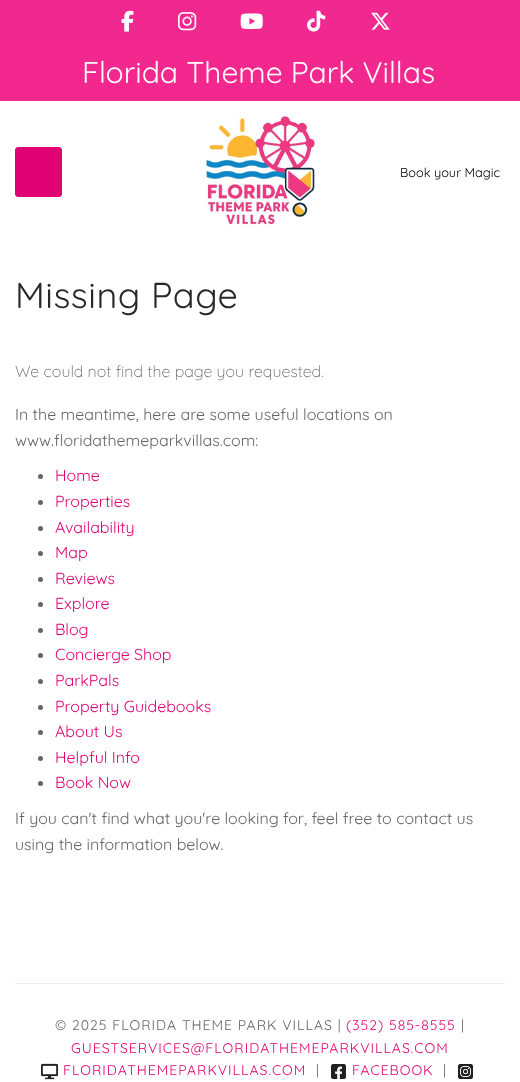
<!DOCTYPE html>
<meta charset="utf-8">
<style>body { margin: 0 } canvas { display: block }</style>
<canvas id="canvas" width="520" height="1082"></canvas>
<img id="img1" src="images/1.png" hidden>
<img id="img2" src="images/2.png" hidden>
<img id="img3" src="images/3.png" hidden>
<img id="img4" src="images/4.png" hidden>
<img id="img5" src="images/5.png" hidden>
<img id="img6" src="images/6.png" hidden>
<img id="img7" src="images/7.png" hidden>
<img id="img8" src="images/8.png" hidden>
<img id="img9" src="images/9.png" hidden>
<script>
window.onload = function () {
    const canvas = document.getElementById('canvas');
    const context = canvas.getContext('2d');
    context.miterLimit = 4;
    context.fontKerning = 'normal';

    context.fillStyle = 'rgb(255, 255, 255)';
    context.fillRect(0, 0, 520, 1082);
    context.fillStyle = 'rgb(240, 40, 143)';
    context.fillRect(0, 0, 520, 43);
    context.drawImage(document.getElementById('img1'), 121, 10, 13, 22);
    context.drawImage(document.getElementById('img2'), 178, 12, 19, 19);
    context.drawImage(document.getElementById('img3'), 240, 13, 23, 16);
    context.drawImage(document.getElementById('img4'), 307, 10, 19, 22);
    context.drawImage(document.getElementById('img5'), 371, 12, 19, 18);
    context.fillStyle = 'rgb(243, 40, 143)';
    context.fillRect(0, 43, 520, 58);
    context.fillStyle = 'rgb(224, 3, 116)';
    context.beginPath();
    context.roundRect(15.5, 147.5, 46, 49, 2.5);
    context.fill();
    context.strokeStyle = 'rgb(224, 3, 116)';
    context.stroke();
    context.drawImage(document.getElementById('img6'), 205, 116, 113, 109);
    context.fillStyle = 'rgb(101, 101, 101)';
    context.beginPath();
    context.arc(40.5, 476.5, 2.5, 0, 2 * Math.PI);
    context.fill();
    context.beginPath();
    context.arc(40.5, 502.5, 2.5, 0, 2 * Math.PI);
    context.fill();
    context.beginPath();
    context.arc(40.5, 528.5, 2.5, 0, 2 * Math.PI);
    context.fill();
    context.beginPath();
    context.arc(40.5, 553.5, 2.5, 0, 2 * Math.PI);
    context.fill();
    context.beginPath();
    context.arc(40.5, 579.5, 2.5, 0, 2 * Math.PI);
    context.fill();
    context.beginPath();
    context.arc(40.5, 604.5, 2.5, 0, 2 * Math.PI);
    context.fill();
    context.beginPath();
    context.arc(40.5, 630.5, 2.5, 0, 2 * Math.PI);
    context.fill();
    context.beginPath();
    context.arc(40.5, 655.5, 2.5, 0, 2 * Math.PI);
    context.fill();
    context.beginPath();
    context.arc(40.5, 681.5, 2.5, 0, 2 * Math.PI);
    context.fill();
    context.beginPath();
    context.arc(40.5, 707.5, 2.5, 0, 2 * Math.PI);
    context.fill();
    context.beginPath();
    context.arc(40.5, 732.5, 2.5, 0, 2 * Math.PI);
    context.fill();
    context.beginPath();
    context.arc(40.5, 758.5, 2.5, 0, 2 * Math.PI);
    context.fill();
    context.beginPath();
    context.arc(40.5, 783.5, 2.5, 0, 2 * Math.PI);
    context.fill();
    context.fillStyle = 'rgb(238, 238, 238)';
    context.fillRect(15, 983, 490, 1);
    context.drawImage(document.getElementById('img7'), 41, 1063, 17, 17);
    context.drawImage(document.getElementById('img8'), 331, 1064, 15, 15);
    context.drawImage(document.getElementById('img9'), 458, 1064, 15, 15);
    context.font = '30px Quicksand';
    context.fillStyle = 'rgb(255, 255, 255)';
    context.fillText('Florida Theme Park Villas', 82, 83);
    context.font = '12.75px Quicksand';
    context.fillStyle = 'rgb(0, 0, 0)';
    context.fillText('Book your Magic', 400, 177);
    context.letterSpacing = '0.5px';
    context.font = '36px Quicksand';
    context.fillStyle = 'rgb(41, 39, 39)';
    context.fillText('Missing Page', 15, 308);
    context.letterSpacing = '0px';
    context.font = '300 16px Quicksand';
    context.fillStyle = 'rgb(101, 101, 101)';
    context.fillText('We could not find the page you requested.', 15, 377);
    context.font = '16px Quicksand';
    context.fillText('In the meantime, here are some useful locations on', 15, 420);
    context.fillText('www.floridathemeparkvillas.com:', 15, 446);
    context.fillStyle = 'rgb(224, 3, 116)';
    context.fillText('Home', 55, 481);
    context.fillText('Properties', 55, 507);
    context.fillText('Availability', 55, 533);
    context.fillText('Map', 55, 558);
    context.fillText('Reviews', 55, 584);
    context.fillText('Explore', 55, 609);
    context.fillText('Blog', 55, 635);
    context.fillText('Concierge Shop', 55, 660);
    context.fillText('ParkPals', 55, 686);
    context.fillText('Property Guidebooks', 55, 712);
    context.fillText('About Us', 55, 737);
    context.fillText('Helpful Info', 55, 763);
    context.fillText('Book Now', 55, 788);
    context.fillStyle = 'rgb(101, 101, 101)';
    context.fillText('If you can\'t find what you\'re looking for, feel free to contact us', 15, 824);
    context.fillText('using the information below.', 15, 850);
    context.letterSpacing = '1px';
    context.font = '14px Quicksand';
    context.fillText('© 2025 FLORIDA THEME PARK VILLAS |', 55, 1030);
    context.fillStyle = 'rgb(224, 3, 116)';
    context.fillText('(352) 585-8555', 346, 1030);
    context.fillStyle = 'rgb(101, 101, 101)';
    context.fillText('|', 461, 1030);
    context.fillStyle = 'rgb(224, 3, 116)';
    context.fillText('GUESTSERVICES@FLORIDATHEMEPARKVILLAS.COM', 71, 1053);
    context.fillText('FLORIDATHEMEPARKVILLAS.COM', 63, 1075);
    context.fillStyle = 'rgb(101, 101, 101)';
    context.fillText('|', 316, 1075);
    context.fillStyle = 'rgb(224, 3, 116)';
    context.fillText('FACEBOOK', 352, 1075);
    context.fillStyle = 'rgb(101, 101, 101)';
    context.fillText('|', 443, 1075);
};
</script>
